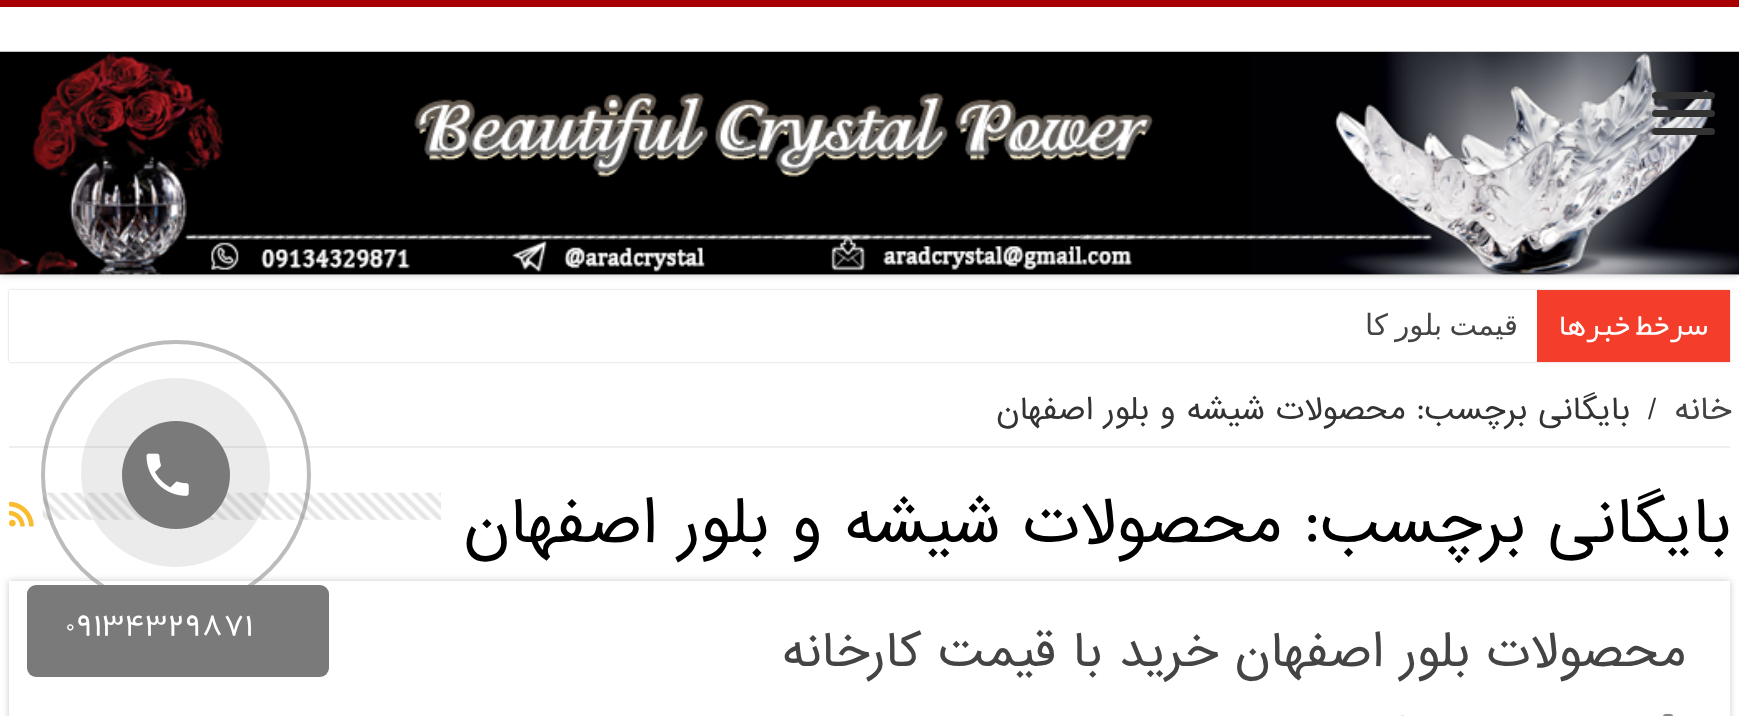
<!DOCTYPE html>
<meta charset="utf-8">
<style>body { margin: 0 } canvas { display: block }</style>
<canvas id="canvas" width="1739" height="716"></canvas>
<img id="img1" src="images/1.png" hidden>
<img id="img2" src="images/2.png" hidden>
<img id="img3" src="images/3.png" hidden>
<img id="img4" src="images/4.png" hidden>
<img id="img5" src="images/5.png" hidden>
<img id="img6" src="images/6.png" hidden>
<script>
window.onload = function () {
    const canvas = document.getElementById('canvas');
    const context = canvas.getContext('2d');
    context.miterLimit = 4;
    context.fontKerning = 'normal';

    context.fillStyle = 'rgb(255, 255, 255)';
    context.fillRect(0, 0, 1739, 716);
    context.fillStyle = 'rgb(202, 202, 202)';
    context.filter = 'blur(3.5px)';
    context.beginPath();
    context.rect(0, 0, 1739, 275);
    context.fill();
    context.filter = 'none';
    context.fillStyle = 'rgb(255, 255, 255)';
    context.fillRect(0, 7, 1739, 268);
    context.fillStyle = 'rgb(168, 0, 0)';
    context.fillRect(0, 0, 1739, 7);
    context.drawImage(document.getElementById('img1'), 0, 51, 1739, 224);
    context.fillStyle = 'rgb(51, 51, 51)';
    context.beginPath();
    context.roundRect(1652, 92, 63, 7, 3.5);
    context.fill();
    context.beginPath();
    context.roundRect(1652, 110, 63, 7, 3.5);
    context.fill();
    context.beginPath();
    context.roundRect(1652, 128, 63, 7, 3.5);
    context.fill();
    context.fillStyle = 'rgb(202, 202, 202)';
    context.filter = 'blur(1px)';
    context.beginPath();
    context.rect(9, 290, 1721, 72);
    context.fill();
    context.filter = 'none';
    context.fillStyle = 'rgb(255, 255, 255)';
    context.fillRect(9, 290, 1528, 72);
    context.fillStyle = 'rgb(244, 61, 42)';
    context.fillRect(1537, 290, 193, 72);
    context.fillStyle = 'rgb(238, 238, 238)';
    context.fillRect(9, 446, 1721, 2);
    context.drawImage(document.getElementById('img2'), 42, 492, 399, 28);
    context.drawImage(document.getElementById('img3'), 9, 501, 25, 26);
    context.save();
    context.beginPath();
    context.moveTo(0, 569);
    context.lineTo(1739, 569);
    context.lineTo(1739, 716);
    context.lineTo(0, 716);
    context.closePath();
    context.moveTo(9, 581);
    context.lineTo(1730, 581);
    context.lineTo(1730, 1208);
    context.lineTo(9, 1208);
    context.closePath();
    context.clip('evenodd');
    context.fillStyle = 'rgb(202, 202, 202)';
    context.filter = 'blur(3.5px)';
    context.beginPath();
    context.rect(9, 581, 1721, 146);
    context.fill();
    context.filter = 'none';
    context.restore();
    context.drawImage(document.getElementById('img4'), 1663, 713, 11, 3);
    context.drawImage(document.getElementById('img5'), 1400, 715, 5, 1);
    context.beginPath();
    context.arc(176, 475, 133, 0, 2 * Math.PI);
    context.strokeStyle = 'rgba(122, 122, 122, 0.5)';
    context.lineWidth = 4;
    context.stroke();
    context.fillStyle = 'rgba(122, 122, 122, 0.15)';
    context.beginPath();
    context.arc(175.5, 472.5, 94.5, 0, 2 * Math.PI);
    context.fill();
    context.fillStyle = 'rgb(122, 122, 122)';
    context.beginPath();
    context.arc(176, 475, 54, 0, 2 * Math.PI);
    context.fill();
    context.drawImage(document.getElementById('img6'), 146, 453, 43, 43);
    context.beginPath();
    context.roundRect(27, 585, 302, 92, 9);
    context.fill();
    context.direction = 'rtl';
    context.font = '31.5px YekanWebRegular';
    context.fillStyle = 'rgb(255, 255, 255)';
    context.fillText('سرخط خبرها', 1708, 335);
    context.wordSpacing = '-2px';
    context.font = '29.25px DejaVu Sans';
    context.fillStyle = 'rgb(68, 68, 68)';
    context.fillText('قیمت بلور کا', 1518, 335);
    context.wordSpacing = '0px';
    context.font = '29.25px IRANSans';
    context.fillText('خانه', 1731, 419);
    context.direction = 'ltr';
    context.fillStyle = 'rgb(51, 51, 51)';
    context.fillText('/', 1648, 419);
    context.direction = 'rtl';
    context.fillText('بایگانی برچسب: محصولات شیشه و بلور اصفهان', 1630, 419);
    context.font = '58.5px IRANSans';
    context.fillStyle = 'rgb(0, 0, 0)';
    context.fillText('بایگانی برچسب:', 1731, 542);
    context.fillText('محصولات شیشه و بلور اصفهان', 1282, 542);
    context.font = '45px IRANSans';
    context.fillStyle = 'rgb(68, 68, 68)';
    context.fillText('محصولات بلور اصفهان خرید با قیمت کارخانه', 1686, 666);
    context.direction = 'ltr';
    context.font = '33.75px YekanWebRegular';
    context.fillStyle = 'rgb(255, 255, 255)';
    context.fillText('09134329871', 65, 636);
};
</script>
